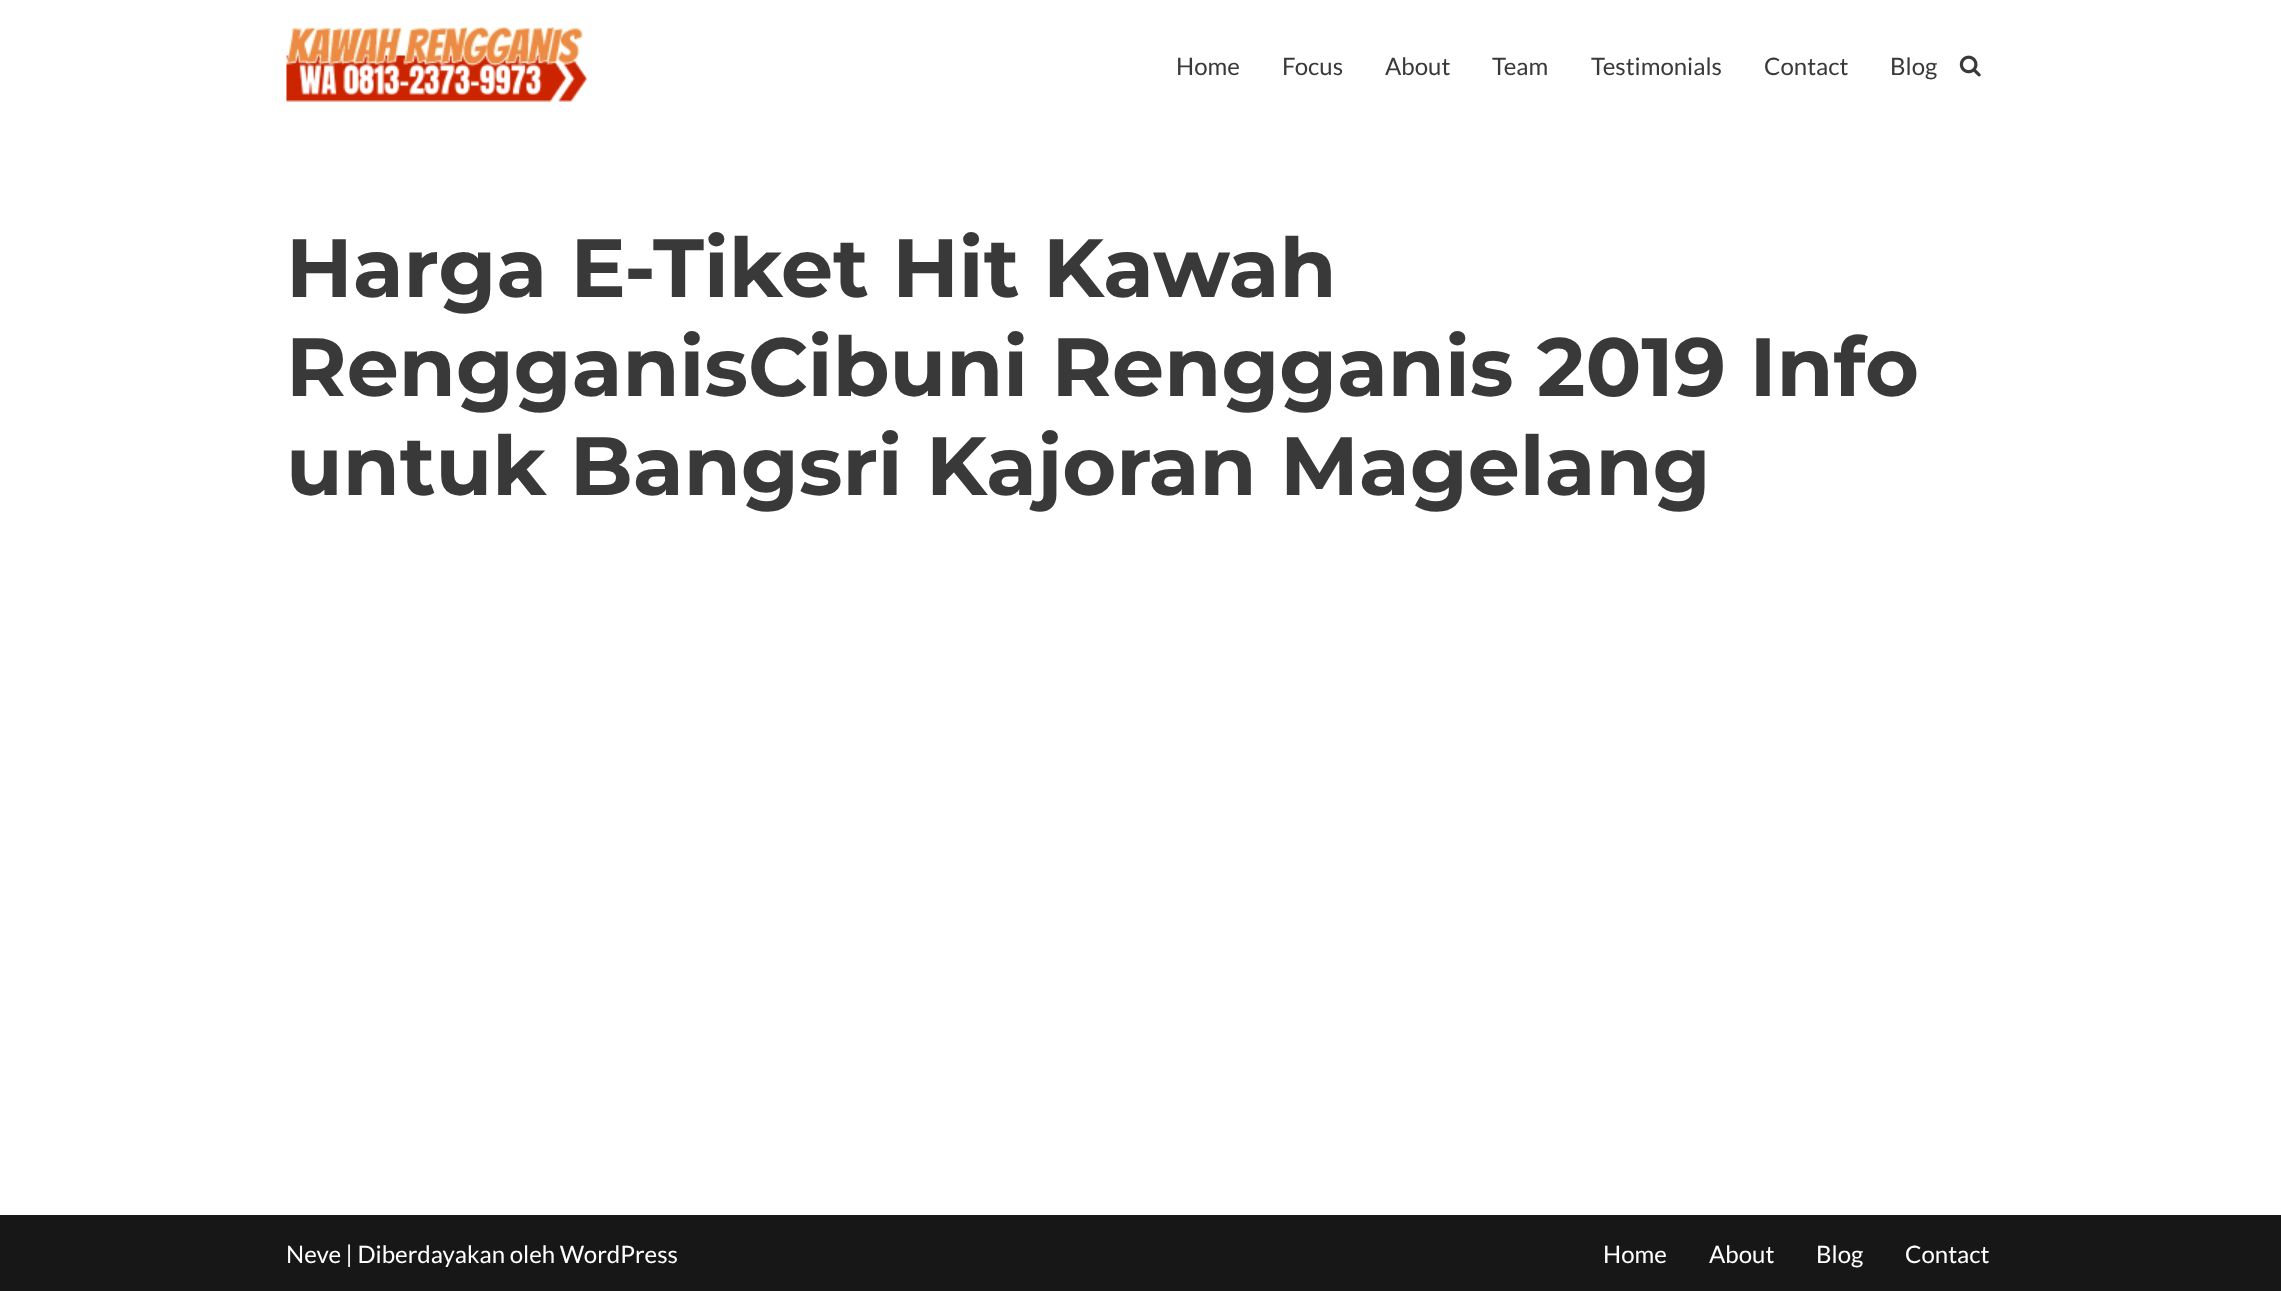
<!DOCTYPE html>
<meta charset="utf-8">
<style>body { margin: 0 } canvas { display: block }</style>
<canvas id="canvas" width="2281" height="1291"></canvas>
<img id="img1" src="images/1.png" hidden>
<img id="img2" src="images/2.png" hidden>
<script>
window.onload = function () {
    const canvas = document.getElementById('canvas');
    const context = canvas.getContext('2d');
    context.miterLimit = 4;
    context.fontKerning = 'normal';

    context.fillStyle = 'rgb(255, 255, 255)';
    context.fillRect(0, 0, 2281, 1291);
    context.drawImage(document.getElementById('img1'), 286, 27, 301, 75);
    context.drawImage(document.getElementById('img2'), 1959, 55, 22, 22);
    context.fillStyle = 'rgb(23, 23, 23)';
    context.fillRect(0, 1215, 2281, 76);
    context.font = '24px Lato';
    context.fillStyle = 'rgb(57, 57, 57)';
    context.fillText('Home', 1176, 75);
    context.fillText('Focus', 1282, 75);
    context.fillText('About', 1385, 75);
    context.fillText('Team', 1492, 75);
    context.fillText('Testimonials', 1591, 75);
    context.fillText('Contact', 1764, 75);
    context.fillText('Blog', 1890, 75);
    context.font = 'bold 82.5px Montserrat';
    context.fillText('Harga E-Tiket Hit Kawah', 286, 297);
    context.fillText('RengganisCibuni Rengganis 2019 Info', 286, 396);
    context.fillText('untuk Bangsri Kajoran Magelang', 286, 495);
    context.font = '24px Lato';
    context.fillStyle = 'rgb(255, 255, 255)';
    context.fillText('Neve | Diberdayakan oleh WordPress', 286, 1263);
    context.fillText('Home', 1603, 1263);
    context.fillText('About', 1709, 1263);
    context.fillText('Blog', 1816, 1263);
    context.fillText('Contact', 1905, 1263);
};
</script>
